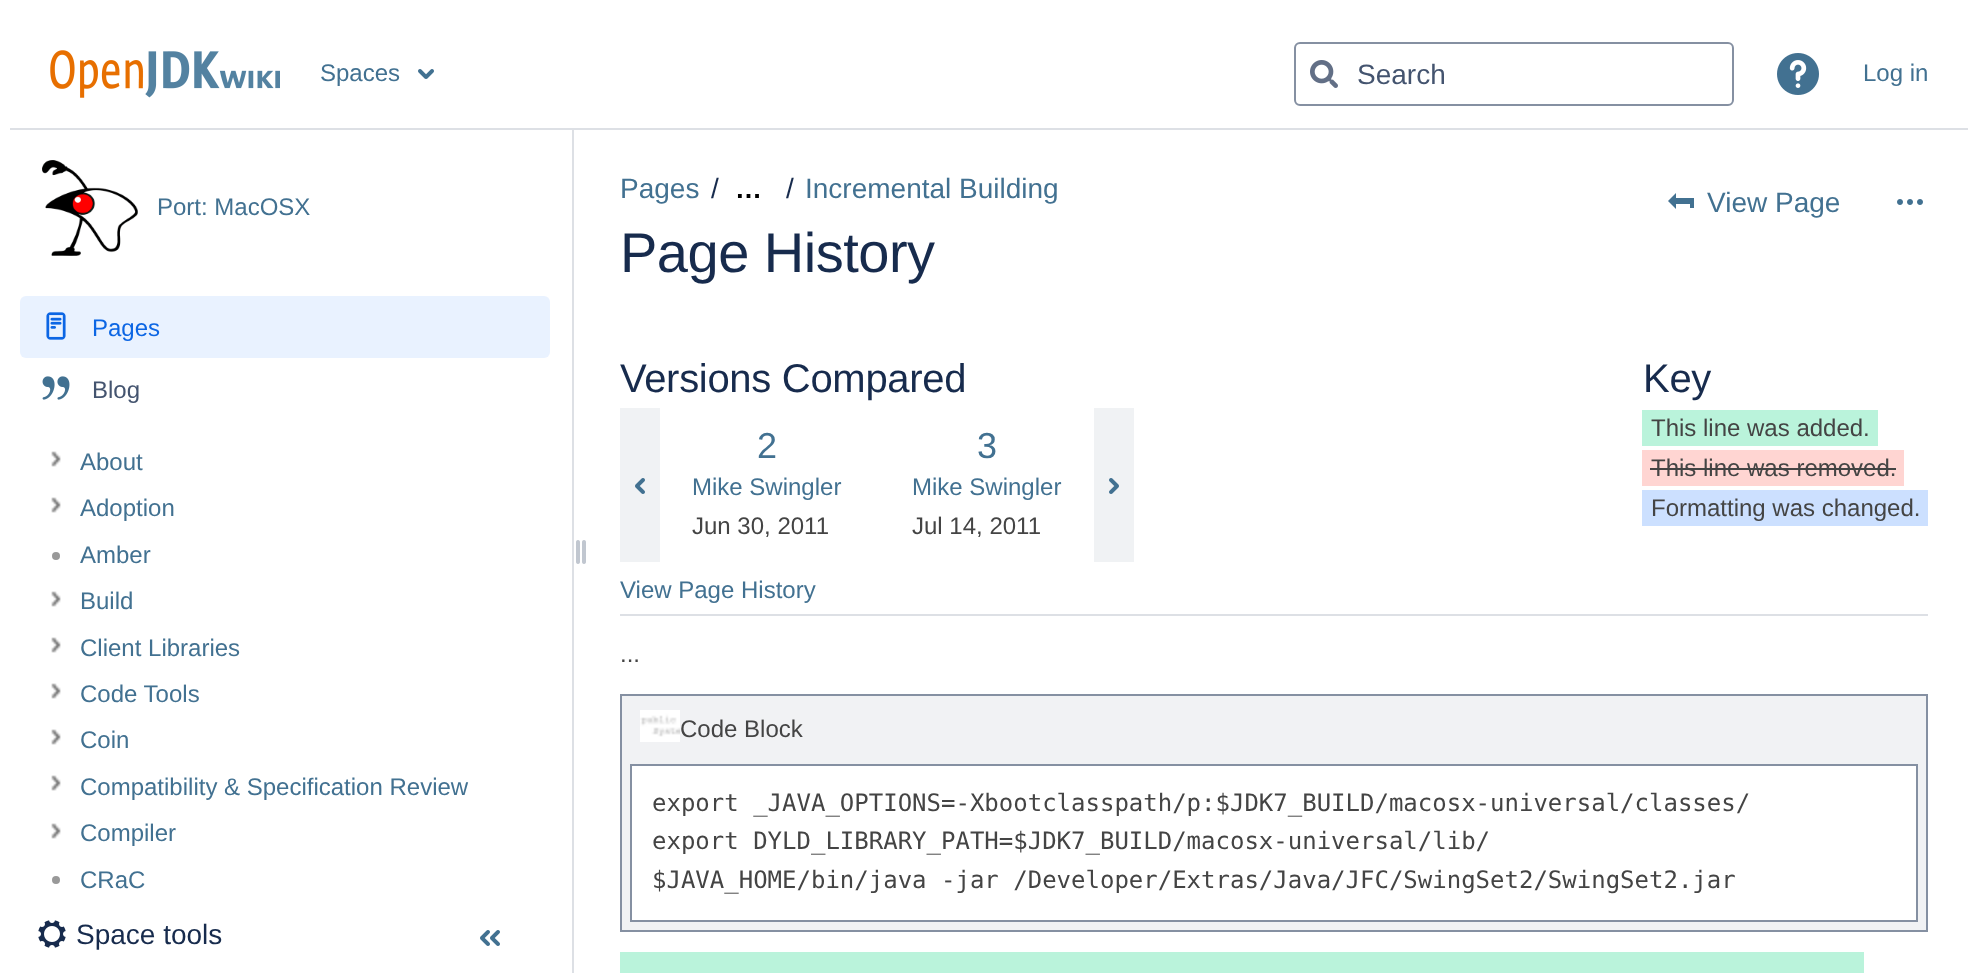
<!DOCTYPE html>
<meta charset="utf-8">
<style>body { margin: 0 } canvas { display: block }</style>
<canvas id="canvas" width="1978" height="973"></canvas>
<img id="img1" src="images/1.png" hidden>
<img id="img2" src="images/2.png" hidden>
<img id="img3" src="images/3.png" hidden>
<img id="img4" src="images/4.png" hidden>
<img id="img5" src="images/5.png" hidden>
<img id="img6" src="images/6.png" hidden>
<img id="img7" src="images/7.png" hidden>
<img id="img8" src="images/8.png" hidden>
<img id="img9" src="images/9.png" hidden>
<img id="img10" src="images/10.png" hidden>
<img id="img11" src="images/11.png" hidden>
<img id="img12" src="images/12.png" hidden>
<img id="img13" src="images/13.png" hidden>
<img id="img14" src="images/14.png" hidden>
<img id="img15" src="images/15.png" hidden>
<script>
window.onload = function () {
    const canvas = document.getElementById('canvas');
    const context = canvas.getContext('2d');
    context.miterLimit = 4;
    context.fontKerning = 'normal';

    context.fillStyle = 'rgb(255, 255, 255)';
    context.fillRect(0, 0, 1978, 973);
    context.fillStyle = 'rgb(221, 224, 229)';
    context.fillRect(10, 128, 1958, 2);
    context.drawImage(document.getElementById('img1'), 50, 50, 230, 48);
    context.drawImage(document.getElementById('img2'), 418, 69, 16, 10);
    context.beginPath();
    context.roundRect(1295, 43, 438, 62, 5);
    context.strokeStyle = 'rgb(133, 144, 162)';
    context.lineWidth = 2;
    context.stroke();
    context.drawImage(document.getElementById('img3'), 1310, 60, 28, 28);
    context.drawImage(document.getElementById('img4'), 1777, 53, 42, 42);
    context.drawImage(document.getElementById('img5'), 42, 160, 96, 96);
    context.fillStyle = 'rgb(233, 242, 255)';
    context.beginPath();
    context.roundRect(20, 296, 530, 62, 6);
    context.fill();
    context.drawImage(document.getElementById('img6'), 46, 312, 20, 28);
    context.drawImage(document.getElementById('img7'), 42, 376, 28, 24);
    context.drawImage(document.getElementById('img8'), 51, 451, 10, 16);
    context.drawImage(document.getElementById('img8'), 51, 497, 10, 16);
    context.fillStyle = 'rgb(153, 153, 153)';
    context.beginPath();
    context.arc(56, 556, 4, 0, 2 * Math.PI);
    context.fill();
    context.drawImage(document.getElementById('img8'), 51, 591, 10, 16);
    context.drawImage(document.getElementById('img8'), 51, 637, 10, 16);
    context.drawImage(document.getElementById('img8'), 51, 683, 10, 16);
    context.drawImage(document.getElementById('img8'), 51, 729, 10, 16);
    context.drawImage(document.getElementById('img8'), 51, 775, 10, 16);
    context.drawImage(document.getElementById('img8'), 51, 823, 10, 16);
    context.beginPath();
    context.arc(56, 880, 4, 0, 2 * Math.PI);
    context.fill();
    context.drawImage(document.getElementById('img9'), 576, 540, 10, 24);
    context.fillStyle = 'rgb(221, 224, 229)';
    context.fillRect(572, 130, 2, 843);
    context.drawImage(document.getElementById('img10'), 38, 920, 28, 28);
    context.drawImage(document.getElementById('img11'), 480, 930, 20, 16);
    context.fillStyle = 'rgb(66, 113, 145)';
    context.beginPath();
    context.moveTo(1676, 193);
    context.lineTo(1668, 201);
    context.lineTo(1676, 209);
    context.lineTo(1676, 204);
    context.lineTo(1690, 204);
    context.lineTo(1690, 208);
    context.lineTo(1694, 208);
    context.lineTo(1694, 198);
    context.lineTo(1676, 198);
    context.closePath();
    context.fill();
    context.drawImage(document.getElementById('img12'), 1897, 199, 26, 6);
    context.fillStyle = 'rgb(221, 224, 229)';
    context.fillRect(620, 614, 1308, 2);
    context.fillStyle = 'rgb(186, 243, 219)';
    context.fillRect(1642, 410, 236, 36);
    context.fillStyle = 'rgb(255, 213, 210)';
    context.fillRect(1642, 450, 262, 36);
    context.fillStyle = 'rgb(68, 68, 68)';
    context.fillRect(1650, 468, 246, 2);
    context.fillStyle = 'rgb(204, 224, 255)';
    context.fillRect(1642, 490, 286, 36);
    context.fillStyle = 'rgb(240, 242, 244)';
    context.fillRect(620, 408, 40, 154);
    context.drawImage(document.getElementById('img13'), 635, 478, 10, 16);
    context.fillRect(1094, 408, 40, 154);
    context.drawImage(document.getElementById('img14'), 1109, 478, 10, 16);
    context.fillStyle = 'rgb(241, 242, 244)';
    context.beginPath();
    context.rect(621, 695, 1306, 236);
    context.fill();
    context.stroke();
    context.drawImage(document.getElementById('img15'), 640, 710, 40, 32);
    context.fillStyle = 'rgb(255, 255, 255)';
    context.beginPath();
    context.rect(631, 765, 1286, 156);
    context.fill();
    context.stroke();
    context.fillStyle = 'rgb(186, 243, 219)';
    context.fillRect(620, 952, 1244, 21);
    context.font = '24px Liberation Sans';
    context.fillStyle = 'rgb(66, 113, 145)';
    context.fillText('Spaces', 320, 81);
    context.font = '28px Liberation Sans';
    context.fillStyle = 'rgb(68, 84, 111)';
    context.fillText('Search', 1357, 84);
    context.font = '24px Liberation Sans';
    context.fillStyle = 'rgb(66, 113, 145)';
    context.fillText('Log in', 1863, 81);
    context.fillText('Port: MacOSX', 157, 215);
    context.fillStyle = 'rgb(12, 102, 228)';
    context.fillText('Pages', 92, 336);
    context.fillStyle = 'rgb(68, 84, 111)';
    context.fillText('Blog', 92, 398);
    context.fillStyle = 'rgb(66, 113, 145)';
    context.fillText('About', 80, 470);
    context.fillText('Adoption', 80, 516);
    context.fillText('Amber', 80, 563);
    context.fillText('Build', 80, 609);
    context.fillText('Client Libraries', 80, 656);
    context.fillText('Code Tools', 80, 702);
    context.fillText('Coin', 80, 748);
    context.fillText('Compatibility & Specification Review', 80, 795);
    context.fillText('Compiler', 80, 841);
    context.fillText('CRaC', 80, 888);
    context.font = '28px Liberation Sans';
    context.fillStyle = 'rgb(23, 43, 77)';
    context.fillText('Space tools', 76, 944);
    context.fillStyle = 'rgb(66, 113, 145)';
    context.fillText('Pages', 620, 198);
    context.fillStyle = 'rgb(23, 43, 77)';
    context.fillText('/', 711, 198);
    context.font = 'bold 27px Liberation Sans';
    context.fillStyle = 'rgb(0, 0, 0)';
    context.fillText('…', 735, 198);
    context.font = '28px Liberation Sans';
    context.fillStyle = 'rgb(23, 43, 77)';
    context.fillText('/', 786, 198);
    context.fillStyle = 'rgb(66, 113, 145)';
    context.fillText('Incremental Building', 805, 198);
    context.letterSpacing = '-0.5px';
    context.font = '56px Liberation Sans';
    context.fillStyle = 'rgb(23, 43, 77)';
    context.fillText('Page History', 620, 272);
    context.letterSpacing = '0px';
    context.font = '28px Liberation Sans';
    context.fillStyle = 'rgb(66, 113, 145)';
    context.fillText('View Page', 1707, 212);
    context.letterSpacing = '-0.3px';
    context.font = '40px Liberation Sans';
    context.fillStyle = 'rgb(23, 43, 77)';
    context.fillText('Versions Compared', 620, 392);
    context.fillText('Key', 1643, 392);
    context.letterSpacing = '0px';
    context.font = '24px Liberation Sans';
    context.fillStyle = 'rgb(68, 68, 68)';
    context.fillText('This line was added.', 1651, 436);
    context.fillText('This line was removed.', 1651, 476);
    context.fillText('Formatting was changed.', 1651, 516);
    context.font = '36px Liberation Sans';
    context.fillStyle = 'rgb(66, 113, 145)';
    context.fillText('2', 757, 458);
    context.font = '24px Liberation Sans';
    context.fillText('Mike Swingler', 692, 495);
    context.fillStyle = 'rgb(68, 68, 68)';
    context.fillText('Jun 30, 2011', 692, 534);
    context.font = '36px Liberation Sans';
    context.fillStyle = 'rgb(66, 113, 145)';
    context.fillText('3', 977, 458);
    context.font = '24px Liberation Sans';
    context.fillText('Mike Swingler', 912, 495);
    context.fillStyle = 'rgb(68, 68, 68)';
    context.fillText('Jul 14, 2011', 912, 534);
    context.fillStyle = 'rgb(66, 113, 145)';
    context.fillText('View Page History', 620, 598);
    context.fillStyle = 'rgb(68, 68, 68)';
    context.fillText('...', 620, 662);
    context.fillText('Code Block', 680, 737);
    context.font = '24px DejaVu Sans Mono';
    context.fillText('export _JAVA_OPTIONS=-Xbootclasspath/p:$JDK7_BUILD/macosx-universal/classes/', 652, 811);
    context.fillText('export DYLD_LIBRARY_PATH=$JDK7_BUILD/macosx-universal/lib/', 652, 849);
    context.fillText('$JAVA_HOME/bin/java -jar /Developer/Extras/Java/JFC/SwingSet2/SwingSet2.jar', 652, 888);
};
</script>
